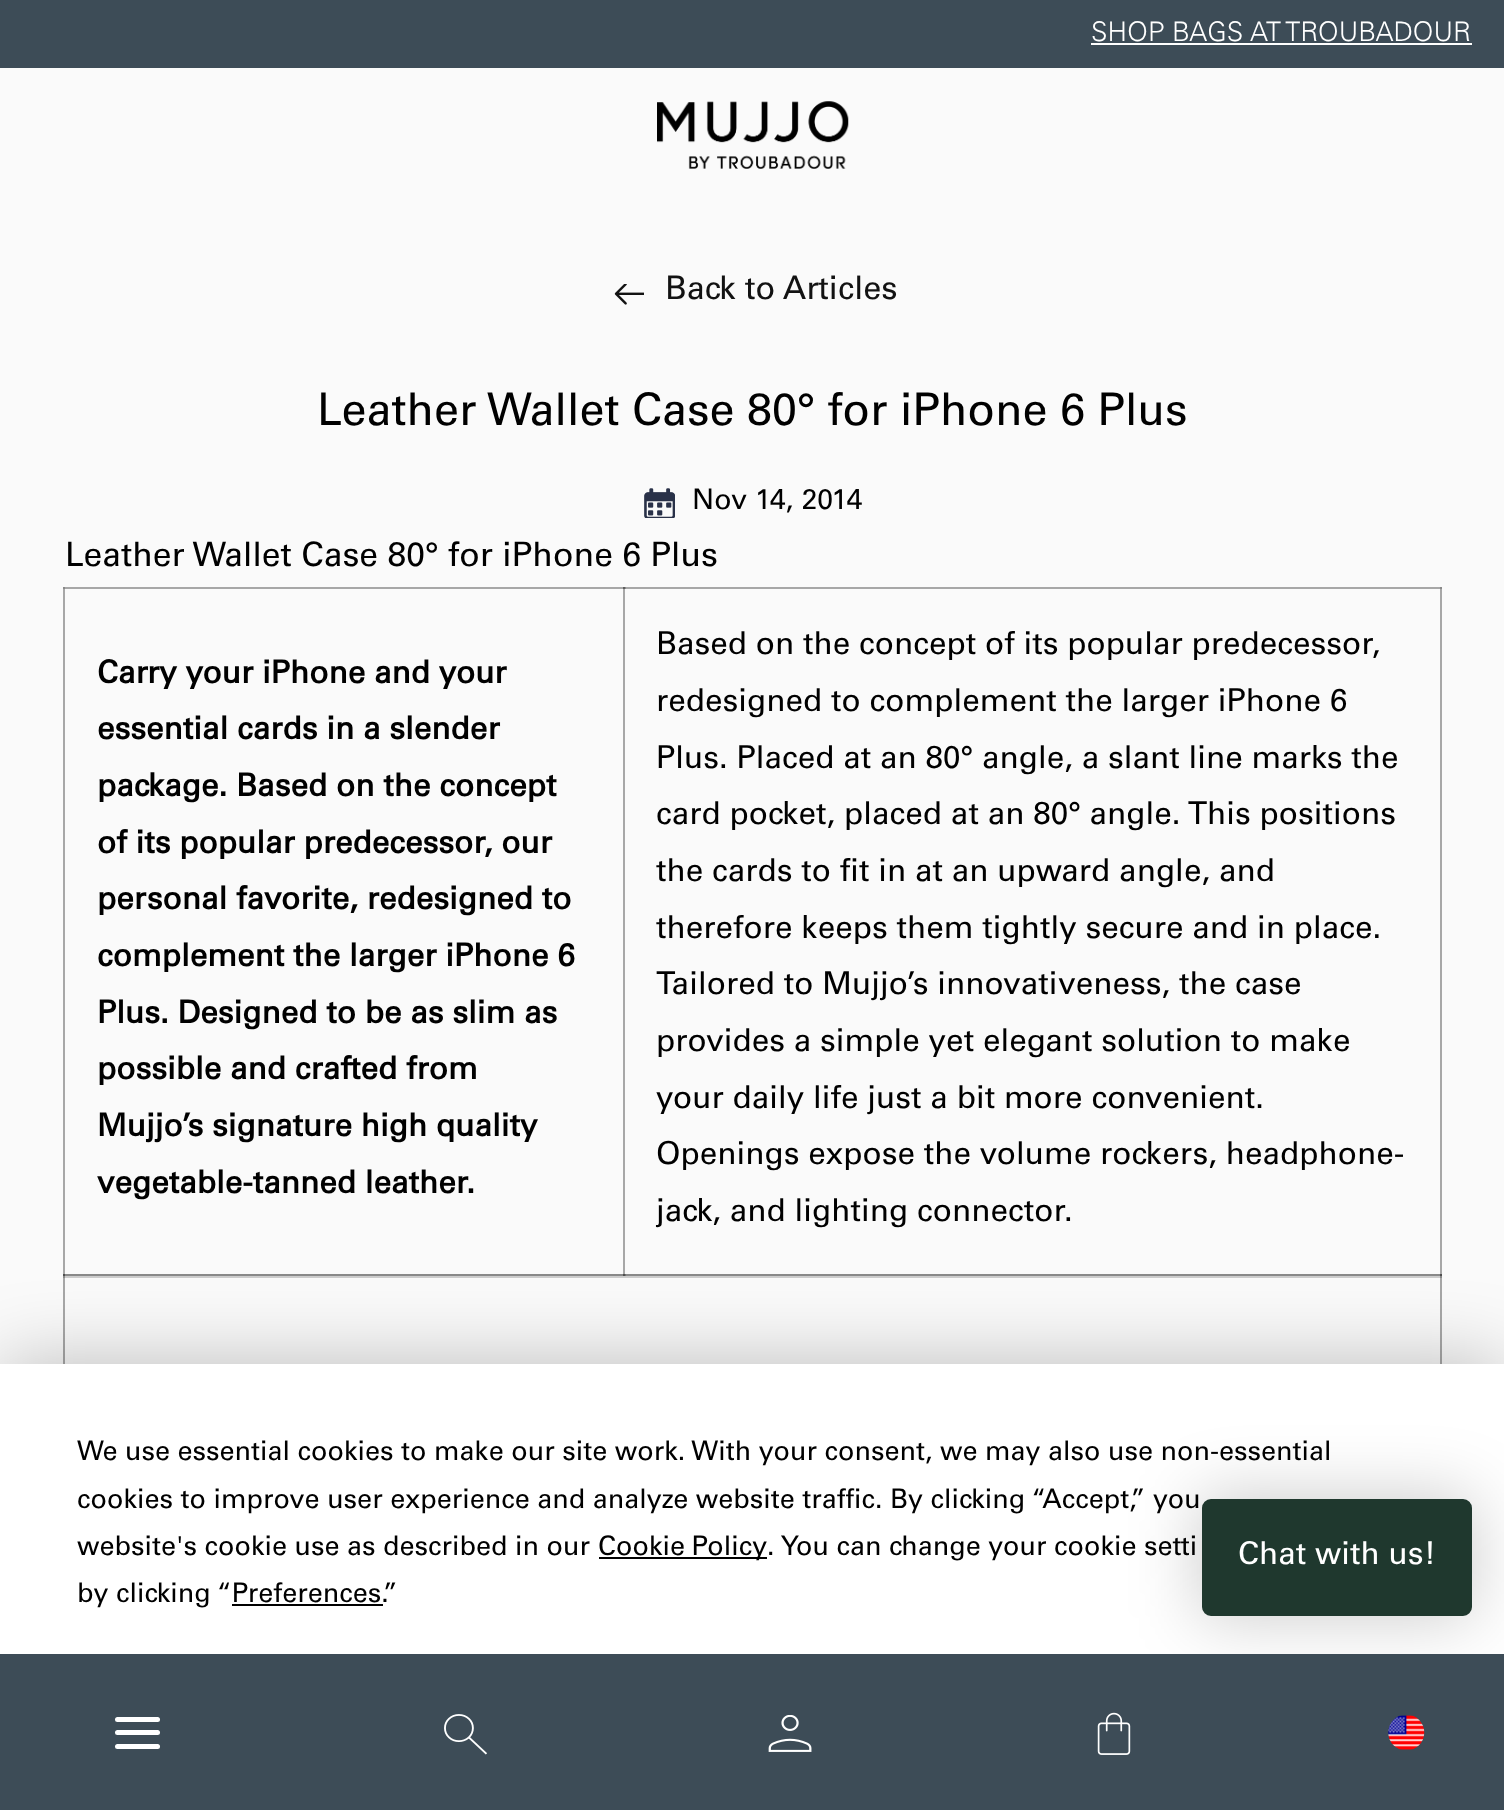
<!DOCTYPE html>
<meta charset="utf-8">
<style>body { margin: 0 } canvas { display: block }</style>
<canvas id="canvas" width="1504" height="1810"></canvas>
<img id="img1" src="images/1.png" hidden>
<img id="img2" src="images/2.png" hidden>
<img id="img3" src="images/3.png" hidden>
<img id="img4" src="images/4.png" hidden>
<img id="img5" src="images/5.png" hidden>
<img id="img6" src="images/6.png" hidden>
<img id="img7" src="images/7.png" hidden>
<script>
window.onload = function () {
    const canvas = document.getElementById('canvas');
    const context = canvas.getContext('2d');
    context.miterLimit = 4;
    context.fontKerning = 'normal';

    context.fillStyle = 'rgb(250, 250, 250)';
    context.fillRect(0, 0, 1504, 1810);
    context.fillStyle = 'rgb(61, 76, 87)';
    context.fillRect(0, 0, 1504, 68);
    context.fillStyle = 'rgb(255, 255, 255)';
    context.fillRect(1091, 43, 381, 2);
    context.drawImage(document.getElementById('img1'), 657, 101, 192, 68);
    context.strokeStyle = 'rgb(204, 204, 204)';
    context.lineWidth = 2;
    context.strokeRect(64, 588, 1377, 689);
    context.fillStyle = 'rgb(167, 167, 167)';
    context.fillRect(623, 587, 819, 2);
    context.fillStyle = 'rgba(18, 18, 18, 0.2)';
    context.fillRect(1440, 587, 2, 689);
    context.fillRect(623, 1274, 819, 2);
    context.fillRect(623, 587, 2, 689);
    context.fillRect(63, 587, 563, 2);
    context.fillRect(623, 587, 2, 689);
    context.fillRect(63, 1274, 563, 2);
    context.fillRect(63, 587, 2, 689);
    context.strokeStyle = 'rgba(18, 18, 18, 0.2)';
    context.strokeRect(64, 1275, 1377, 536);
    context.fillRect(63, 1274, 1379, 2);
    context.fillRect(1440, 1274, 2, 90);
    context.fillRect(63, 1274, 2, 90);
    context.fillStyle = 'rgba(0, 0, 0, 0.25)';
    context.filter = 'blur(39.5px)';
    context.beginPath();
    context.rect(0, 1364, 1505, 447);
    context.fill();
    context.filter = 'none';
    context.fillStyle = 'rgb(255, 255, 255)';
    context.fillRect(0, 1364, 1504, 290);
    context.fillStyle = 'rgba(0, 0, 0, 0.2)';
    context.filter = 'blur(34px)';
    context.beginPath();
    context.roundRect(1199, 1496, 275, 122, 11);
    context.fill();
    context.filter = 'none';
    context.fillStyle = 'rgb(61, 76, 87)';
    context.fillRect(0, 1654, 1504, 156);
    context.fillStyle = 'rgb(255, 255, 255)';
    context.beginPath();
    context.roundRect(115, 1717, 45, 5, 2.5);
    context.fill();
    context.beginPath();
    context.roundRect(115, 1730, 45, 5, 2.5);
    context.fill();
    context.beginPath();
    context.roundRect(115, 1744, 45, 5, 2.5);
    context.fill();
    context.drawImage(document.getElementById('img2'), 444, 1714, 43, 41);
    context.drawImage(document.getElementById('img3'), 768, 1715, 44, 37);
    context.drawImage(document.getElementById('img4'), 1097, 1712, 34, 43);
    context.drawImage(document.getElementById('img5'), 1388, 1715, 37, 35);
    context.drawImage(document.getElementById('img6'), 614, 284, 30, 21);
    context.drawImage(document.getElementById('img7'), 644, 488, 31, 30);
    context.fillStyle = 'rgb(0, 0, 0)';
    context.fillRect(599, 1557, 168, 2);
    context.fillRect(232, 1604, 151, 2);
    context.fillStyle = 'rgb(31, 56, 46)';
    context.beginPath();
    context.roundRect(1203, 1500, 268, 115, 8);
    context.fill();
    context.strokeStyle = 'rgb(31, 56, 46)';
    context.stroke();
    context.font = '300 27px Univers';
    context.fillStyle = 'rgb(255, 255, 255)';
    context.fillText('SHOP BAGS AT TROUBADOUR', 1091, 41);
    context.font = '32.5px Univers';
    context.fillStyle = 'rgb(18, 18, 18)';
    context.fillText('Back to Articles', 665, 299);
    context.font = '45px Univers';
    context.fillStyle = 'rgb(0, 0, 0)';
    context.fillText('Leather Wallet Case 80° for iPhone 6 Plus', 317, 425);
    context.font = '28.5px Univers';
    context.fillText('Nov 14, 2014', 692, 509);
    context.font = '33.75px Univers';
    context.fillText('Leather Wallet Case 80° for iPhone 6 Plus', 65, 566);
    context.font = 'bold 31.5px Univers';
    context.fillText('Carry your iPhone and your', 97, 683);
    context.fillText('essential cards in a slender', 97, 739);
    context.fillText('package. Based on the concept', 97, 796);
    context.fillText('of its popular predecessor, our', 97, 853);
    context.fillText('personal favorite, redesigned to', 97, 909);
    context.fillText('complement the larger iPhone 6', 97, 966);
    context.fillText('Plus. Designed to be as slim as', 97, 1023);
    context.fillText('possible and crafted from', 97, 1079);
    context.fillText('Mujjo’s signature high quality', 97, 1136);
    context.fillText('vegetable-tanned leather.', 97, 1193);
    context.font = '31.5px Univers';
    context.fillText('Based on the concept of its popular predecessor,', 656, 654);
    context.fillText('redesigned to complement the larger iPhone 6', 656, 711);
    context.fillText('Plus. Placed at an 80° angle, a slant line marks the', 656, 768);
    context.fillText('card pocket, placed at an 80° angle. This positions', 656, 824);
    context.fillText('the cards to fit in at an upward angle, and', 656, 881);
    context.fillText('therefore keeps them tightly secure and in place.', 656, 938);
    context.fillText('Tailored to Mujjo’s innovativeness, the case', 656, 994);
    context.fillText('provides a simple yet elegant solution to make', 656, 1051);
    context.fillText('your daily life just a bit more convenient.', 656, 1108);
    context.fillText('Openings expose the volume rockers, headphone-', 656, 1164);
    context.fillText('jack, and lighting connector.', 656, 1221);
    context.font = '27px Univers';
    context.fillText('We use essential cookies to make our site work. With your consent, we may also use non-essential', 77, 1460);
    context.fillText('cookies to improve user experience and analyze website traffic. By clicking “Accept,” you', 77, 1508);
    context.fillText('website\'s cookie use as described in our', 77, 1555);
    context.wordSpacing = '-1px';
    context.fillText('Cookie Policy', 598, 1555);
    context.wordSpacing = '0px';
    context.fillText('. You can change your cookie setti', 767, 1555);
    context.fillText('by clicking “Preferences.”', 77, 1602);
    context.font = '31.5px Univers';
    context.fillStyle = 'rgb(255, 255, 255)';
    context.fillText('Chat with us!', 1238, 1564);
};
</script>
